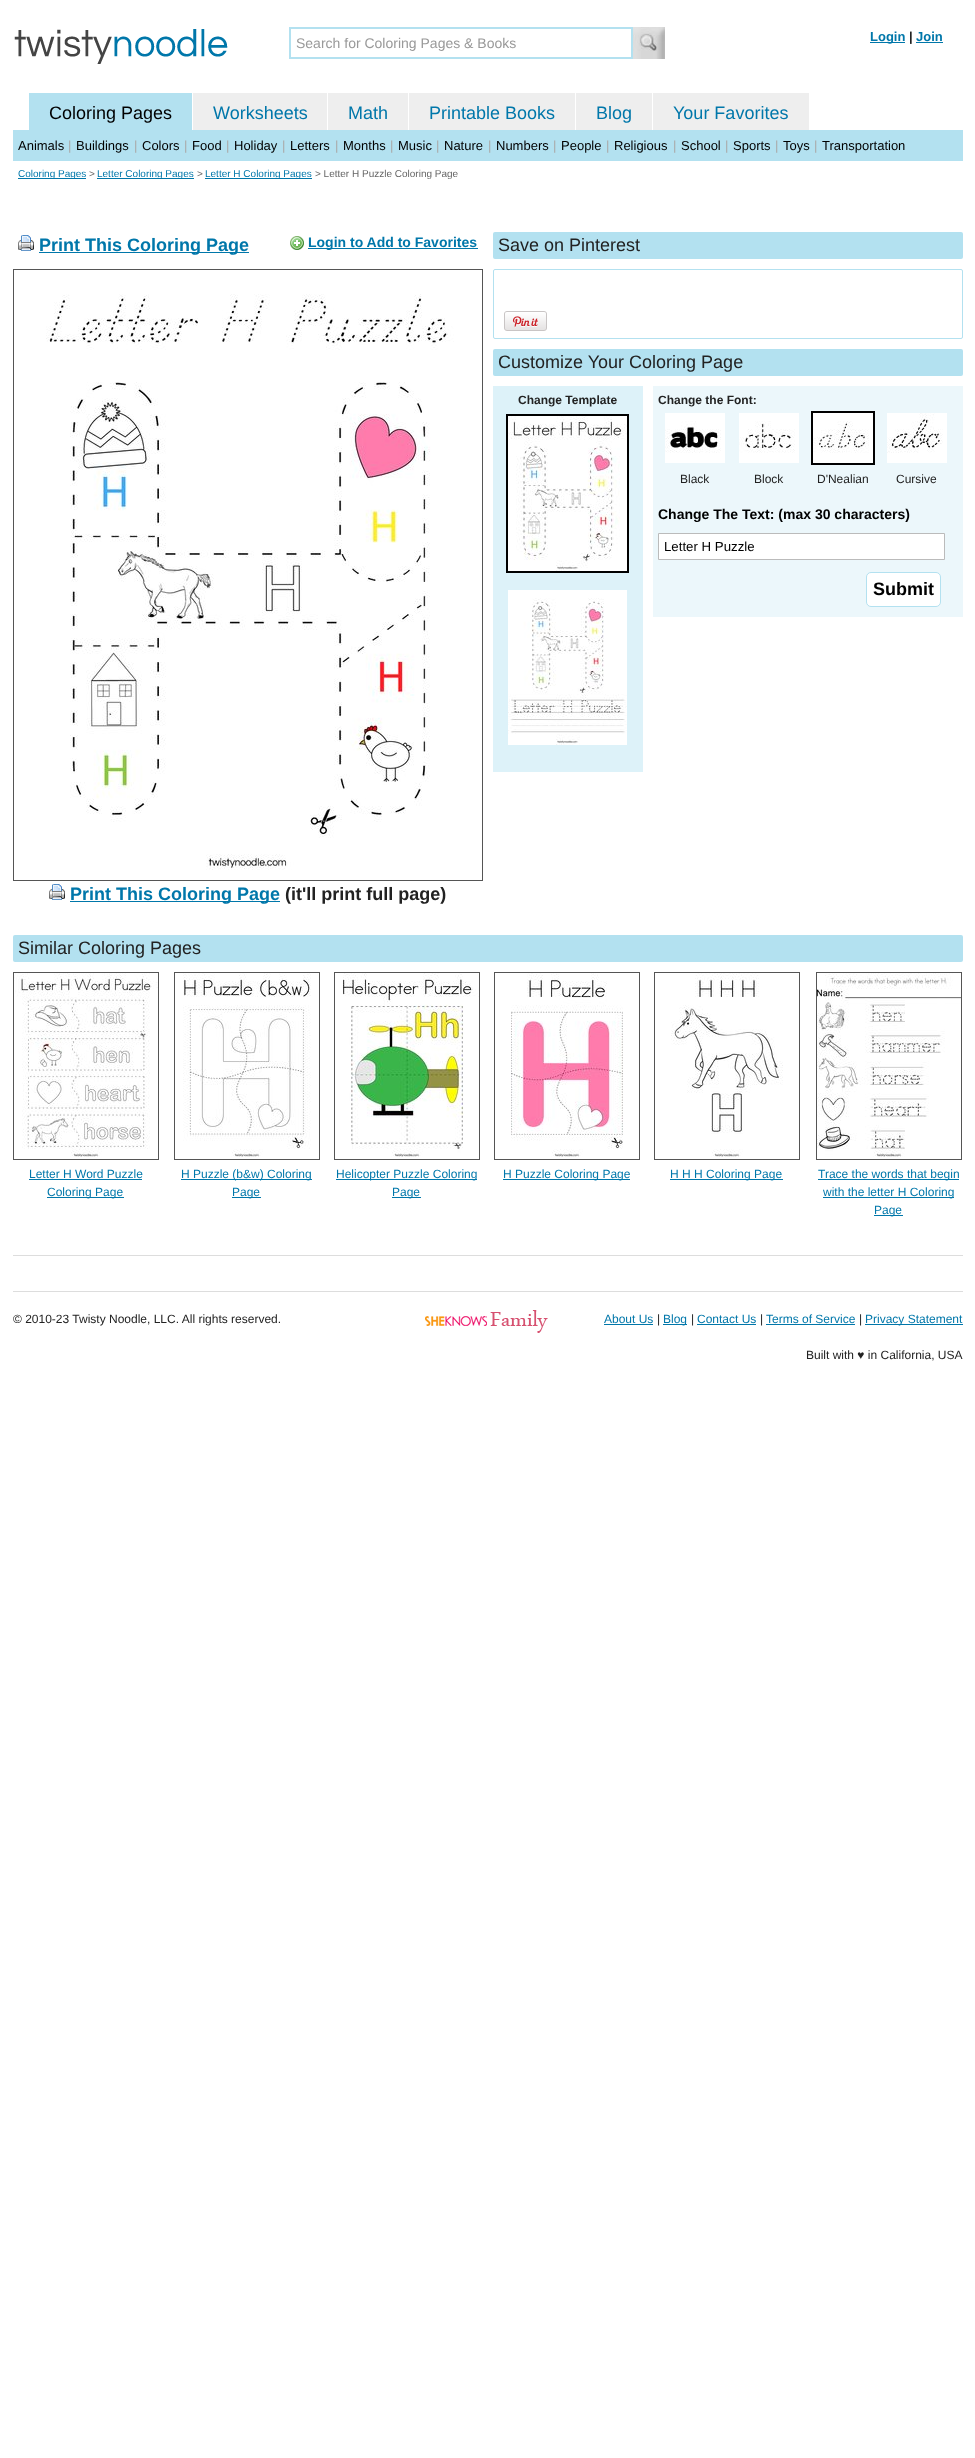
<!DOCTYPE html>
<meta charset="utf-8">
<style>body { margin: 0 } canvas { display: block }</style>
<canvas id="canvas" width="975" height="2458"></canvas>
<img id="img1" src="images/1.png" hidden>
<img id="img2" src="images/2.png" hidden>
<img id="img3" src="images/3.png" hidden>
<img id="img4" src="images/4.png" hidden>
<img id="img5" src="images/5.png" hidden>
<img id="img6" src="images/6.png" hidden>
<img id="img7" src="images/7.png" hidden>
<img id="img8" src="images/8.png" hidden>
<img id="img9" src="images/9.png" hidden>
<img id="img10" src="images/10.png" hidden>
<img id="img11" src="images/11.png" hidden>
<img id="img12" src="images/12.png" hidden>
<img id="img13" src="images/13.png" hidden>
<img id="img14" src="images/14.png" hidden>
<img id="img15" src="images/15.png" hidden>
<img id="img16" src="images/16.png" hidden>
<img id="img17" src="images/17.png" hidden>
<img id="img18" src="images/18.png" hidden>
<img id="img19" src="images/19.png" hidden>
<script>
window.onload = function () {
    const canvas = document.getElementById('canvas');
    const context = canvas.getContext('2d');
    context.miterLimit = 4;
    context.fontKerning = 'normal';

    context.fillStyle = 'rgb(255, 255, 255)';
    context.fillRect(0, 0, 975, 2458);
    context.drawImage(document.getElementById('img1'), 14, 29, 214, 35);
    context.strokeStyle = 'rgb(179, 225, 240)';
    context.lineWidth = 2;
    context.strokeRect(290, 28, 342, 30);
    context.drawImage(document.getElementById('img2'), 633, 27, 32, 32);
    context.fillStyle = 'rgb(0, 119, 170)';
    context.fillRect(870, 42, 35, 1);
    context.fillRect(916, 42, 27, 1);
    context.fillStyle = 'rgb(179, 225, 240)';
    context.fillRect(29, 93, 163, 37);
    context.fillStyle = 'rgb(238, 238, 238)';
    context.fillRect(193, 93, 134, 37);
    context.fillRect(328, 93, 80, 37);
    context.fillRect(409, 93, 166, 37);
    context.fillRect(576, 93, 76, 37);
    context.fillRect(653, 93, 156, 37);
    context.fillStyle = 'rgb(179, 225, 240)';
    context.fillRect(13, 130, 950, 31);
    context.fillStyle = 'rgb(0, 119, 170)';
    context.fillRect(18, 178, 68, 1);
    context.fillRect(97, 178, 97, 1);
    context.fillRect(205, 178, 107, 1);
    context.drawImage(document.getElementById('img3'), 18, 235, 16, 16);
    context.fillRect(39, 252, 210, 1);
    context.drawImage(document.getElementById('img4'), 290, 236, 14, 14);
    context.fillRect(308, 248, 170, 1);
    context.strokeStyle = 'rgb(85, 85, 85)';
    context.lineWidth = 1;
    context.strokeRect(13.5, 269.5, 469, 611);
    context.drawImage(document.getElementById('img5'), 46, 294, 408, 576);
    context.drawImage(document.getElementById('img3'), 49, 884, 16, 16);
    context.fillRect(70, 901, 210, 1);
    context.fillStyle = 'rgb(179, 225, 240)';
    context.beginPath();
    context.roundRect(493, 232, 470, 27, 2);
    context.fill();
    context.beginPath();
    context.roundRect(493.5, 269.5, 469, 69, 1.5);
    context.strokeStyle = 'rgb(179, 225, 240)';
    context.stroke();
    context.drawImage(document.getElementById('img6'), 504, 311, 43, 20);
    context.beginPath();
    context.roundRect(493, 349, 470, 27, 2);
    context.fill();
    context.fillStyle = 'rgb(221, 242, 249)';
    context.fillRect(493, 386, 150, 386);
    context.strokeStyle = 'rgb(0, 0, 0)';
    context.lineWidth = 2;
    context.strokeRect(507, 415, 121, 157);
    context.drawImage(document.getElementById('img7'), 508, 416, 119, 155);
    context.drawImage(document.getElementById('img8'), 508, 590, 119, 155);
    context.fillStyle = 'rgb(236, 247, 251)';
    context.fillRect(653, 386, 310, 231);
    context.drawImage(document.getElementById('img9'), 665, 413, 60, 50);
    context.drawImage(document.getElementById('img10'), 739, 413, 60, 50);
    context.strokeRect(812, 412, 62, 52);
    context.drawImage(document.getElementById('img11'), 813, 413, 60, 50);
    context.drawImage(document.getElementById('img12'), 887, 413, 60, 50);
    context.fillStyle = 'rgb(255, 255, 255)';
    context.beginPath();
    context.rect(658.5, 533.5, 286, 26);
    context.fill();
    context.strokeStyle = 'rgb(187, 187, 187)';
    context.lineWidth = 1;
    context.stroke();
    context.beginPath();
    context.roundRect(866.5, 572.5, 74, 34, 4.5);
    context.fill();
    context.strokeStyle = 'rgb(179, 225, 240)';
    context.stroke();
    context.fillStyle = 'rgb(179, 225, 240)';
    context.beginPath();
    context.roundRect(13, 935, 950, 27, 2);
    context.fill();
    context.strokeStyle = 'rgb(85, 85, 85)';
    context.strokeRect(13.5, 972.5, 145, 187);
    context.drawImage(document.getElementById('img13'), 14, 973, 144, 184);
    context.fillStyle = 'rgb(0, 119, 170)';
    context.fillRect(29, 1179, 113, 1);
    context.fillRect(47, 1197, 77, 1);
    context.strokeRect(174.5, 972.5, 145, 187);
    context.drawImage(document.getElementById('img14'), 183, 973, 128, 184);
    context.fillRect(181, 1179, 131, 1);
    context.fillRect(232, 1197, 29, 1);
    context.strokeRect(334.5, 972.5, 145, 187);
    context.drawImage(document.getElementById('img15'), 343, 973, 136, 184);
    context.fillRect(336, 1179, 141, 1);
    context.fillRect(392, 1197, 29, 1);
    context.strokeRect(494.5, 972.5, 145, 187);
    context.drawImage(document.getElementById('img16'), 511, 973, 112, 184);
    context.fillRect(503, 1179, 127, 1);
    context.strokeRect(654.5, 972.5, 145, 187);
    context.drawImage(document.getElementById('img17'), 671, 973, 112, 184);
    context.fillRect(670, 1179, 113, 1);
    context.strokeRect(816.5, 972.5, 145, 187);
    context.drawImage(document.getElementById('img18'), 817, 973, 144, 184);
    context.fillRect(818, 1179, 141, 1);
    context.fillRect(823, 1197, 131, 1);
    context.fillRect(874, 1215, 29, 1);
    context.fillStyle = 'rgb(221, 221, 221)';
    context.fillRect(13, 1255, 950, 1);
    context.fillRect(13, 1291, 950, 1);
    context.drawImage(document.getElementById('img19'), 424, 1310, 124, 23);
    context.fillStyle = 'rgb(0, 119, 170)';
    context.fillRect(604, 1324, 49, 1);
    context.fillRect(663, 1324, 24, 1);
    context.fillRect(697, 1324, 59, 1);
    context.fillRect(766, 1324, 89, 1);
    context.fillRect(865, 1324, 98, 1);
    context.font = '14px Liberation Sans';
    context.fillStyle = 'rgb(153, 153, 153)';
    context.fillText('Search for Coloring Pages & Books', 296, 48);
    context.font = 'bold 13px Liberation Sans';
    context.fillStyle = 'rgb(0, 119, 170)';
    context.fillText('Login', 870, 41);
    context.fillStyle = 'rgb(34, 34, 34)';
    context.fillText('|', 909, 41);
    context.fillStyle = 'rgb(0, 119, 170)';
    context.fillText('Join', 916, 41);
    context.font = '18px Liberation Sans';
    context.fillStyle = 'rgb(0, 0, 0)';
    context.fillText('Coloring Pages', 49, 119);
    context.fillStyle = 'rgb(0, 119, 170)';
    context.fillText('Worksheets', 213, 119);
    context.fillText('Math', 348, 119);
    context.fillText('Printable Books', 429, 119);
    context.fillText('Blog', 596, 119);
    context.fillText('Your Favorites', 673, 119);
    context.font = '13px Liberation Sans';
    context.fillStyle = 'rgb(0, 0, 0)';
    context.fillText('Animals', 18, 150);
    context.fillStyle = 'rgb(170, 170, 170)';
    context.fillText('|', 68, 150);
    context.fillStyle = 'rgb(0, 0, 0)';
    context.fillText('Buildings', 76, 150);
    context.fillStyle = 'rgb(170, 170, 170)';
    context.fillText('|', 134, 150);
    context.fillStyle = 'rgb(0, 0, 0)';
    context.fillText('Colors', 142, 150);
    context.fillStyle = 'rgb(170, 170, 170)';
    context.fillText('|', 184, 150);
    context.fillStyle = 'rgb(0, 0, 0)';
    context.fillText('Food', 192, 150);
    context.fillStyle = 'rgb(170, 170, 170)';
    context.fillText('|', 226, 150);
    context.fillStyle = 'rgb(0, 0, 0)';
    context.fillText('Holiday', 234, 150);
    context.fillStyle = 'rgb(170, 170, 170)';
    context.fillText('|', 282, 150);
    context.fillStyle = 'rgb(0, 0, 0)';
    context.fillText('Letters', 290, 150);
    context.fillStyle = 'rgb(170, 170, 170)';
    context.fillText('|', 335, 150);
    context.fillStyle = 'rgb(0, 0, 0)';
    context.fillText('Months', 343, 150);
    context.fillStyle = 'rgb(170, 170, 170)';
    context.fillText('|', 390, 150);
    context.fillStyle = 'rgb(0, 0, 0)';
    context.fillText('Music', 398, 150);
    context.fillStyle = 'rgb(170, 170, 170)';
    context.fillText('|', 436, 150);
    context.fillStyle = 'rgb(0, 0, 0)';
    context.fillText('Nature', 444, 150);
    context.fillStyle = 'rgb(170, 170, 170)';
    context.fillText('|', 488, 150);
    context.fillStyle = 'rgb(0, 0, 0)';
    context.fillText('Numbers', 496, 150);
    context.fillStyle = 'rgb(170, 170, 170)';
    context.fillText('|', 553, 150);
    context.fillStyle = 'rgb(0, 0, 0)';
    context.fillText('People', 561, 150);
    context.fillStyle = 'rgb(170, 170, 170)';
    context.fillText('|', 606, 150);
    context.fillStyle = 'rgb(0, 0, 0)';
    context.fillText('Religious', 614, 150);
    context.fillStyle = 'rgb(170, 170, 170)';
    context.fillText('|', 673, 150);
    context.fillStyle = 'rgb(0, 0, 0)';
    context.fillText('School', 681, 150);
    context.fillStyle = 'rgb(170, 170, 170)';
    context.fillText('|', 725, 150);
    context.fillStyle = 'rgb(0, 0, 0)';
    context.fillText('Sports', 733, 150);
    context.fillStyle = 'rgb(170, 170, 170)';
    context.fillText('|', 775, 150);
    context.fillStyle = 'rgb(0, 0, 0)';
    context.fillText('Toys', 783, 150);
    context.fillStyle = 'rgb(170, 170, 170)';
    context.fillText('|', 814, 150);
    context.fillStyle = 'rgb(0, 0, 0)';
    context.fillText('Transportation', 822, 150);
    context.font = '10px Liberation Sans';
    context.fillStyle = 'rgb(0, 119, 170)';
    context.fillText('Coloring Pages', 18, 177);
    context.fillStyle = 'rgb(102, 102, 102)';
    context.fillText('>', 89, 177);
    context.fillStyle = 'rgb(0, 119, 170)';
    context.fillText('Letter Coloring Pages', 97, 177);
    context.fillStyle = 'rgb(102, 102, 102)';
    context.fillText('>', 197, 177);
    context.fillStyle = 'rgb(0, 119, 170)';
    context.fillText('Letter H Coloring Pages', 205, 177);
    context.fillStyle = 'rgb(102, 102, 102)';
    context.fillText('> Letter H Puzzle Coloring Page', 315, 177);
    context.font = 'bold 18px Liberation Sans';
    context.fillStyle = 'rgb(0, 119, 170)';
    context.fillText('Print This Coloring Page', 39, 251);
    context.font = 'bold 14px Liberation Sans';
    context.fillText('Login to Add to Favorites', 308, 247);
    context.font = 'bold 18px Liberation Sans';
    context.fillText('Print This Coloring Page', 70, 900);
    context.fillStyle = 'rgb(34, 34, 34)';
    context.fillText('(it\'ll print full page)', 285, 900);
    context.font = '18px Liberation Sans';
    context.fillText('Save on Pinterest', 498, 251);
    context.fillText('Customize Your Coloring Page', 498, 368);
    context.font = 'bold 12px Liberation Sans';
    context.fillText('Change Template', 518, 404);
    context.fillText('Change the Font:', 658, 404);
    context.font = '12px Liberation Sans';
    context.fillText('Black', 680, 483);
    context.fillText('Block', 754, 483);
    context.fillText('D\'Nealian', 817, 483);
    context.fillText('Cursive', 896, 483);
    context.font = 'bold 14px Liberation Sans';
    context.fillStyle = 'rgb(0, 0, 0)';
    context.fillText('Change The Text: (max 30 characters)', 658, 519);
    context.font = '13.25px Liberation Sans';
    context.fillText('Letter H Puzzle', 664, 551);
    context.font = 'bold 18px Liberation Sans';
    context.fillText('Submit', 873, 595);
    context.font = '18px Liberation Sans';
    context.fillStyle = 'rgb(34, 34, 34)';
    context.fillText('Similar Coloring Pages', 18, 954);
    context.font = '12px Liberation Sans';
    context.fillStyle = 'rgb(0, 119, 170)';
    context.fillText('Letter H Word Puzzle', 29, 1178);
    context.fillText('Coloring Page', 47, 1196);
    context.fillText('H Puzzle (b&w) Coloring', 181, 1178);
    context.fillText('Page', 232, 1196);
    context.fillText('Helicopter Puzzle Coloring', 336, 1178);
    context.fillText('Page', 392, 1196);
    context.fillText('H Puzzle Coloring Page', 503, 1178);
    context.fillText('H H H Coloring Page', 670, 1178);
    context.fillText('Trace the words that begin', 818, 1178);
    context.fillText('with the letter H Coloring', 823, 1196);
    context.fillText('Page', 874, 1214);
    context.fillStyle = 'rgb(34, 34, 34)';
    context.fillText('© 2010-23 Twisty Noodle, LLC. All rights reserved.', 13, 1323);
    context.fillStyle = 'rgb(0, 119, 170)';
    context.fillText('About Us', 604, 1323);
    context.fillStyle = 'rgb(34, 34, 34)';
    context.fillText('|', 657, 1323);
    context.fillStyle = 'rgb(0, 119, 170)';
    context.fillText('Blog', 663, 1323);
    context.fillStyle = 'rgb(34, 34, 34)';
    context.fillText('|', 691, 1323);
    context.fillStyle = 'rgb(0, 119, 170)';
    context.fillText('Contact Us', 697, 1323);
    context.fillStyle = 'rgb(34, 34, 34)';
    context.fillText('|', 760, 1323);
    context.fillStyle = 'rgb(0, 119, 170)';
    context.fillText('Terms of Service', 766, 1323);
    context.fillStyle = 'rgb(34, 34, 34)';
    context.fillText('|', 859, 1323);
    context.fillStyle = 'rgb(0, 119, 170)';
    context.fillText('Privacy Statement', 865, 1323);
    context.fillStyle = 'rgb(34, 34, 34)';
    context.fillText('Built with ♥ in California, USA', 806, 1359);
};
</script>
